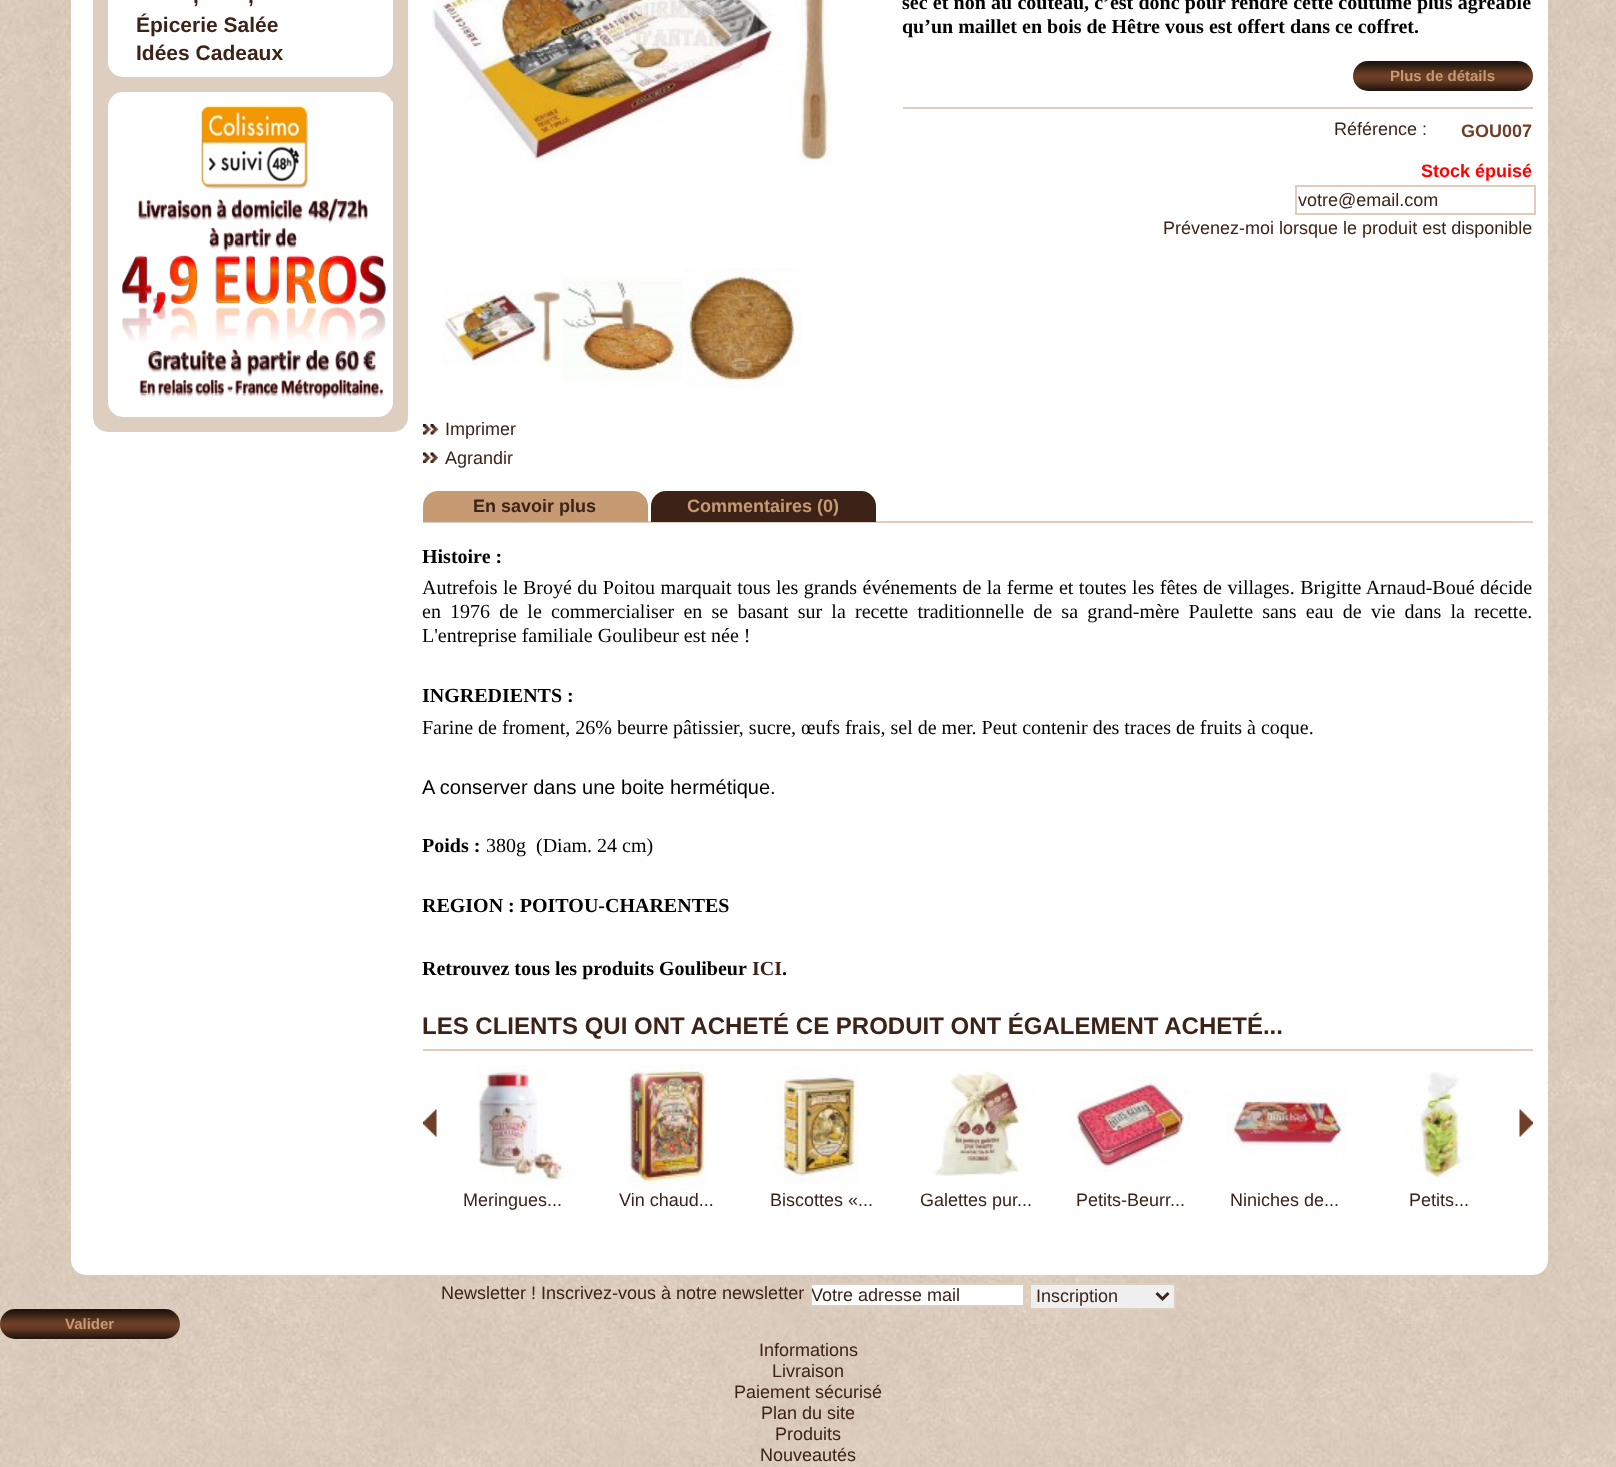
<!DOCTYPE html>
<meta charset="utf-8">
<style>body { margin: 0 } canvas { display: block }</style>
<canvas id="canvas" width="1616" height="1467"></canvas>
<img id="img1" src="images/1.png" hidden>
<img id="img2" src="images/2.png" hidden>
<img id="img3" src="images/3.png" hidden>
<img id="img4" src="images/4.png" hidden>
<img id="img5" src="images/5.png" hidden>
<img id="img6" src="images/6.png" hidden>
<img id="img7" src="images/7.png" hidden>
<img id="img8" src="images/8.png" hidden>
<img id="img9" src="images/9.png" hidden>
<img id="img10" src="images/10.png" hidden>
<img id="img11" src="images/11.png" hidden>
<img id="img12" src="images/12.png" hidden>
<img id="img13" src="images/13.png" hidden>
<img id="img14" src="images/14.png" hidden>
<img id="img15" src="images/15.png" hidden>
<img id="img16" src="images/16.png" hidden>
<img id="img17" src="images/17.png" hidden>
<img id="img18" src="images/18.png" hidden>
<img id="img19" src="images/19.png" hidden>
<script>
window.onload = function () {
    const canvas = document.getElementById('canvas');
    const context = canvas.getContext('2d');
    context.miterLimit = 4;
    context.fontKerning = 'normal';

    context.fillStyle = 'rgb(255, 255, 255)';
    context.fillRect(0, 0, 1616, 1467);
    context.drawImage(document.getElementById('img1'), 0, 0, 1616, 1467);
    context.beginPath();
    context.roundRect(71, -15, 1477, 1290, 15);
    context.fill();
    context.fillStyle = 'rgb(222, 206, 191)';
    context.beginPath();
    context.roundRect(93, -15, 315, 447, 15);
    context.fill();
    context.fillStyle = 'rgb(255, 255, 255)';
    context.beginPath();
    context.roundRect(108, -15, 285, 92, 15);
    context.fill();
    context.beginPath();
    context.roundRect(108, 92, 285, 325, 15);
    context.fill();
    context.drawImage(document.getElementById('img2'), 122, 101, 271, 299);
    context.fillStyle = 'rgb(222, 206, 191)';
    context.fillRect(903, 107, 630, 2);
    context.drawImage(document.getElementById('img3'), 1353, 61, 180, 30);
    context.strokeStyle = 'rgb(222, 206, 191)';
    context.lineWidth = 2;
    context.strokeRect(1296, 186, 239, 28);
    context.drawImage(document.getElementById('img4'), 432, 0, 399, 164);
    context.drawImage(document.getElementById('img5'), 443, 290, 120, 75);
    context.drawImage(document.getElementById('img6'), 562, 277, 121, 111);
    context.drawImage(document.getElementById('img7'), 682, 268, 120, 120);
    context.drawImage(document.getElementById('img8'), 423, 424, 15, 11);
    context.drawImage(document.getElementById('img9'), 423, 452, 15, 11);
    context.fillRect(423, 521, 1110, 2);
    context.fillStyle = 'rgb(198, 154, 114)';
    context.beginPath();
    context.roundRect(423, 491, 225, 31, [15, 15, 0, 0]);
    context.fill();
    context.fillStyle = 'rgb(61, 35, 23)';
    context.beginPath();
    context.roundRect(651, 491, 225, 31, [15, 15, 0, 0]);
    context.fill();
    context.fillStyle = 'rgb(222, 206, 191)';
    context.fillRect(423, 1049, 1110, 2);
    context.drawImage(document.getElementById('img10'), 423, 1109, 14, 28);
    context.drawImage(document.getElementById('img11'), 1519, 1109, 14, 28);
    context.drawImage(document.getElementById('img12'), 477, 1065, 96, 120);
    context.drawImage(document.getElementById('img13'), 627, 1064, 82, 121);
    context.drawImage(document.getElementById('img14'), 762, 1065, 97, 120);
    context.drawImage(document.getElementById('img15'), 932, 1068, 104, 110);
    context.drawImage(document.getElementById('img16'), 1071, 1074, 120, 98);
    context.drawImage(document.getElementById('img17'), 1225, 1088, 121, 73);
    context.drawImage(document.getElementById('img18'), 1404, 1072, 72, 113);
    context.fillStyle = 'rgb(255, 255, 255)';
    context.beginPath();
    context.rect(811, 1284, 213, 22);
    context.fill();
    context.stroke();
    context.fillStyle = 'rgb(239, 239, 239)';
    context.beginPath();
    context.rect(1030, 1284, 145, 25);
    context.fill();
    context.stroke();
    context.beginPath();
    context.moveTo(1156.5, 1293);
    context.lineTo(1162.5, 1299);
    context.lineTo(1168.5, 1293);
    context.strokeStyle = 'rgb(61, 35, 23)';
    context.lineWidth = 3;
    context.stroke();
    context.drawImage(document.getElementById('img19'), 0, 1309, 180, 30);
    context.font = 'bold 21px Liberation Sans';
    context.fillStyle = 'rgb(61, 35, 23)';
    context.fillText(',', 193, 3);
    context.fillText(',', 248, 3);
    context.fillText('Épicerie Salée', 136, 32);
    context.fillText('Idées Cadeaux', 136, 60);
    context.wordSpacing = '0.25px';
    context.font = 'bold 20px Liberation Serif';
    context.fillStyle = 'rgb(0, 0, 0)';
    context.fillText('sec et non au couteau, c’est donc pour rendre cette coutume plus agréable', 902, 9);
    context.wordSpacing = '0px';
    context.fillText('qu’un maillet en bois de Hêtre vous est offert dans ce coffret.', 902, 33);
    context.font = 'bold 15px Liberation Sans';
    context.fillStyle = 'rgb(198, 154, 114)';
    context.fillText('Plus de détails', 1390, 81);
    context.font = '18px Liberation Sans';
    context.fillStyle = 'rgb(61, 35, 23)';
    context.fillText('Référence :', 1334, 135);
    context.font = 'bold 18px Liberation Sans';
    context.fillStyle = 'rgb(111, 63, 40)';
    context.fillText('GOU007', 1461, 137);
    context.fillStyle = 'rgb(255, 0, 0)';
    context.fillText('Stock épuisé', 1421, 177);
    context.font = '18px Liberation Sans';
    context.fillStyle = 'rgb(61, 35, 23)';
    context.fillText('votre@email.com', 1298, 206);
    context.fillText('Prévenez-moi lorsque le produit est disponible', 1163, 234);
    context.fillText('Imprimer', 445, 435);
    context.fillText('Agrandir', 445, 464);
    context.font = 'bold 18px Liberation Sans';
    context.fillText('En savoir plus', 473, 512);
    context.fillStyle = 'rgb(198, 154, 114)';
    context.fillText('Commentaires (0)', 687, 512);
    context.font = 'bold 20px Liberation Serif';
    context.fillStyle = 'rgb(0, 0, 0)';
    context.fillText('Histoire :', 422, 563);
    context.wordSpacing = '0.5px';
    context.font = '20px Liberation Serif';
    context.fillText('Autrefois le Broyé du Poitou marquait tous les grands événements de la ferme et toutes les fêtes de villages. Brigitte Arnaud-Boué décide', 422, 594);
    context.wordSpacing = '4.2px';
    context.fillText('en 1976 de le commercialiser en se basant sur la recette traditionnelle de sa grand-mère Paulette sans eau de vie dans la recette.', 422, 618);
    context.wordSpacing = '0px';
    context.fillText('L\'entreprise familiale Goulibeur est née !', 422, 642);
    context.font = 'bold 20px Liberation Serif';
    context.fillText('INGREDIENTS :', 422, 702);
    context.font = '20px Liberation Serif';
    context.fillText('Farine de froment, 26% beurre pâtissier, sucre, œufs frais, sel de mer. Peut contenir des traces de fruits à coque.', 422, 734);
    context.font = '20px Liberation Sans';
    context.fillText('A conserver dans une boite hermétique.', 422, 794);
    context.font = 'bold 20px Liberation Serif';
    context.fillText('Poids :', 422, 852);
    context.font = '20px Liberation Serif';
    context.fillText('380g  (Diam. 24 cm)', 486, 852);
    context.font = 'bold 20px Liberation Serif';
    context.fillText('REGION : POITOU-CHARENTES', 422, 912);
    context.fillText('Retrouvez tous les produits Goulibeur', 422, 975);
    context.fillStyle = 'rgb(61, 35, 23)';
    context.fillText('ICI', 752, 975);
    context.fillStyle = 'rgb(0, 0, 0)';
    context.fillText('.', 782, 975);
    context.font = 'bold 24px Liberation Sans';
    context.fillStyle = 'rgb(61, 35, 23)';
    context.fillText('LES CLIENTS QUI ONT ACHETÉ CE PRODUIT ONT ÉGALEMENT ACHETÉ...', 422, 1034);
    context.font = '18px Liberation Sans';
    context.fillText('Meringues...', 463, 1206);
    context.fillText('Vin chaud...', 619, 1206);
    context.fillText('Biscottes «...', 770, 1206);
    context.fillText('Galettes pur...', 920, 1206);
    context.fillText('Petits-Beurr...', 1076, 1206);
    context.fillText('Niniches de...', 1230, 1206);
    context.fillText('Petits...', 1409, 1206);
    context.fillText('Newsletter ! Inscrivez-vous à notre newsletter', 441, 1299);
    context.save();
    context.beginPath();
    context.rect(812, 1284, 211, 21);
    context.clip();
    context.fillText('Votre adresse mail', 811, 1301);
    context.restore();
    context.fillText('Inscription', 1036, 1302);
    context.font = 'bold 15px Liberation Sans';
    context.fillStyle = 'rgb(198, 154, 114)';
    context.fillText('Valider', 65, 1329);
    context.font = '18px Liberation Sans';
    context.fillStyle = 'rgb(61, 35, 23)';
    context.fillText('Informations', 759, 1356);
    context.fillText('Livraison', 772, 1377);
    context.fillText('Paiement sécurisé', 734, 1398);
    context.fillText('Plan du site', 761, 1419);
    context.fillText('Produits', 775, 1440);
    context.fillText('Nouveautés', 760, 1461);
};
</script>
